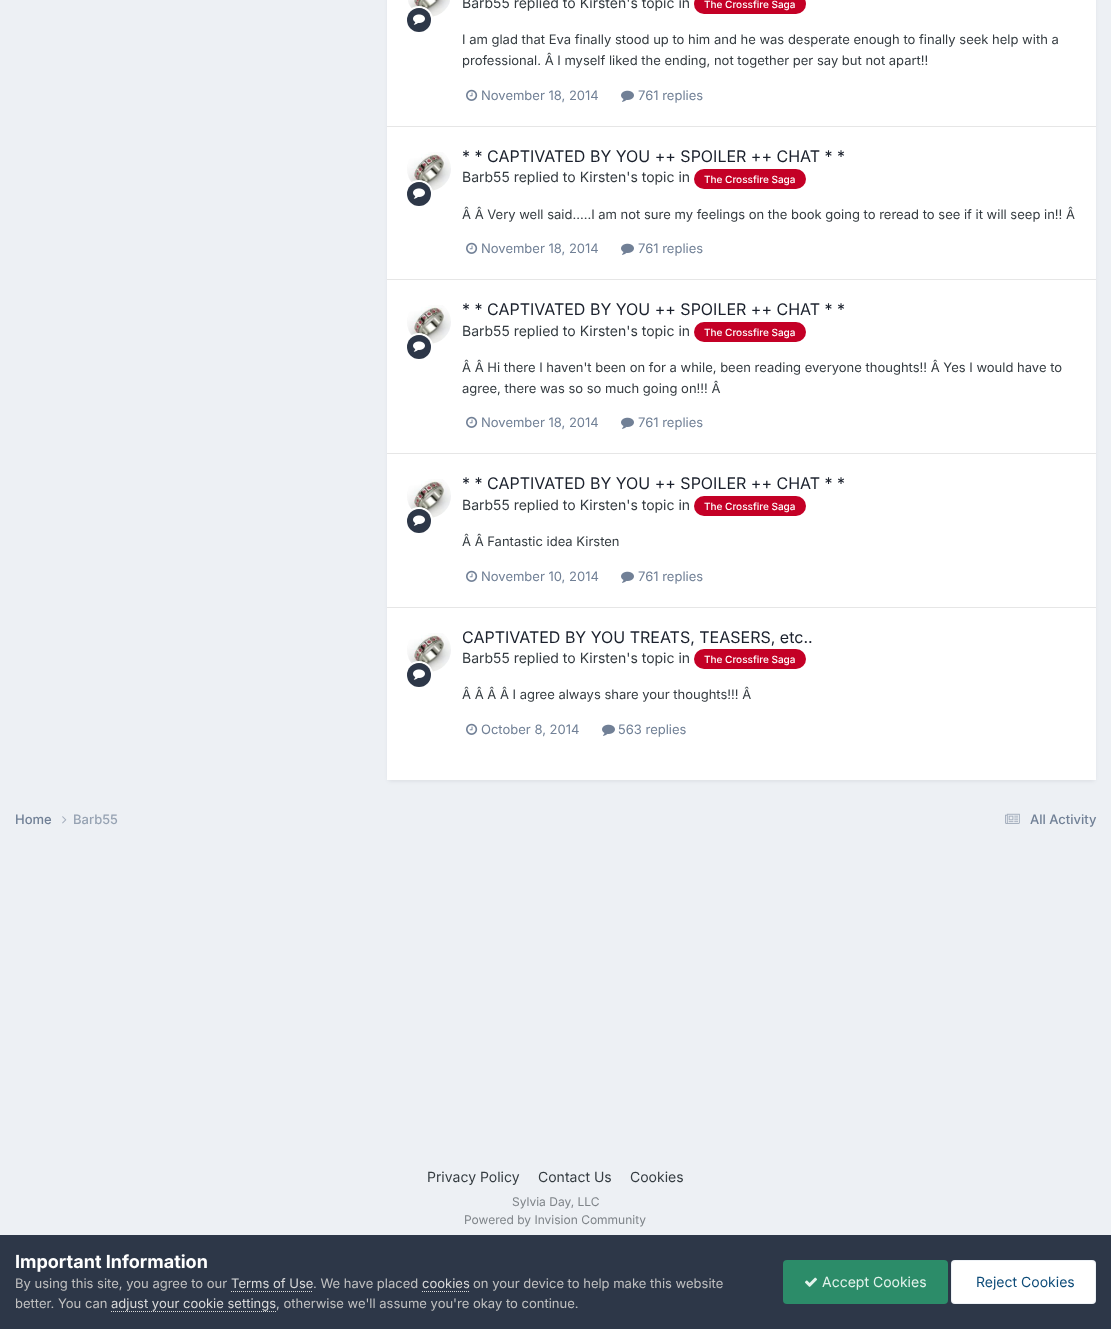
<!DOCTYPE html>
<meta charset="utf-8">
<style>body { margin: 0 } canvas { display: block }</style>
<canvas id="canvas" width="1111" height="1329"></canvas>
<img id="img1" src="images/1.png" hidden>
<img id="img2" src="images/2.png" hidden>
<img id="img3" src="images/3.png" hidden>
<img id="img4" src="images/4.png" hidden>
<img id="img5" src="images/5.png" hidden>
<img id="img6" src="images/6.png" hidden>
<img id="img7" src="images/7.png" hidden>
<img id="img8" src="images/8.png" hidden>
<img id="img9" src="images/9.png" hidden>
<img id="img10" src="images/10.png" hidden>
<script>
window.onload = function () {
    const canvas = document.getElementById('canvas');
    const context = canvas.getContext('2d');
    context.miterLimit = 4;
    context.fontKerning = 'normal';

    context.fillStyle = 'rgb(237, 240, 244)';
    context.fillRect(0, 0, 1111, 1329);
    context.fillStyle = 'rgba(45, 55, 72, 0.1)';
    context.filter = 'blur(2px)';
    context.beginPath();
    context.roundRect(388, -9, 707, 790, 3);
    context.fill();
    context.filter = 'none';
    context.fillStyle = 'rgb(255, 255, 255)';
    context.fillRect(387, 0, 709, 780);
    context.fillStyle = 'rgb(230, 230, 230)';
    context.fillRect(387, 126, 709, 1);
    context.drawImage(document.getElementById('img1'), 408, 0, 42, 17);
    context.fillStyle = 'rgb(196, 0, 38)';
    context.beginPath();
    context.roundRect(694, -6, 112, 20, 10);
    context.fill();
    context.beginPath();
    context.arc(419, 20, 13, 0, 2 * Math.PI);
    context.strokeStyle = 'rgb(255, 255, 255)';
    context.lineWidth = 2;
    context.stroke();
    context.fillStyle = 'rgb(45, 55, 72)';
    context.beginPath();
    context.arc(419, 20, 12, 0, 2 * Math.PI);
    context.fill();
    context.drawImage(document.getElementById('img2'), 413, 14, 12, 11);
    context.drawImage(document.getElementById('img3'), 466, 89, 12, 12);
    context.drawImage(document.getElementById('img4'), 621, 90, 13, 12);
    context.fillStyle = 'rgb(230, 230, 230)';
    context.fillRect(387, 279, 709, 1);
    context.drawImage(document.getElementById('img5'), 407, 152, 44, 39);
    context.fillStyle = 'rgb(196, 0, 38)';
    context.beginPath();
    context.roundRect(694, 169, 112, 20, 10);
    context.fill();
    context.beginPath();
    context.arc(419, 194, 13, 0, 2 * Math.PI);
    context.stroke();
    context.fillStyle = 'rgb(45, 55, 72)';
    context.beginPath();
    context.arc(419, 194, 12, 0, 2 * Math.PI);
    context.fill();
    context.drawImage(document.getElementById('img2'), 413, 188, 12, 11);
    context.drawImage(document.getElementById('img3'), 466, 242, 12, 12);
    context.drawImage(document.getElementById('img4'), 621, 243, 13, 12);
    context.fillStyle = 'rgb(230, 230, 230)';
    context.fillRect(387, 453, 709, 1);
    context.drawImage(document.getElementById('img6'), 407, 305, 44, 39);
    context.fillStyle = 'rgb(196, 0, 38)';
    context.beginPath();
    context.roundRect(694, 322, 112, 20, 10);
    context.fill();
    context.beginPath();
    context.arc(419, 347, 13, 0, 2 * Math.PI);
    context.stroke();
    context.fillStyle = 'rgb(45, 55, 72)';
    context.beginPath();
    context.arc(419, 347, 12, 0, 2 * Math.PI);
    context.fill();
    context.drawImage(document.getElementById('img2'), 413, 341, 12, 11);
    context.drawImage(document.getElementById('img3'), 466, 416, 12, 12);
    context.drawImage(document.getElementById('img4'), 621, 417, 13, 12);
    context.fillStyle = 'rgb(230, 230, 230)';
    context.fillRect(387, 607, 709, 1);
    context.drawImage(document.getElementById('img6'), 407, 479, 44, 39);
    context.fillStyle = 'rgb(196, 0, 38)';
    context.beginPath();
    context.roundRect(694, 496, 112, 20, 10);
    context.fill();
    context.beginPath();
    context.arc(419, 521, 13, 0, 2 * Math.PI);
    context.stroke();
    context.fillStyle = 'rgb(45, 55, 72)';
    context.beginPath();
    context.arc(419, 521, 12, 0, 2 * Math.PI);
    context.fill();
    context.drawImage(document.getElementById('img2'), 413, 515, 12, 11);
    context.drawImage(document.getElementById('img3'), 466, 570, 12, 12);
    context.drawImage(document.getElementById('img4'), 621, 571, 13, 12);
    context.drawImage(document.getElementById('img7'), 407, 633, 44, 39);
    context.fillStyle = 'rgb(196, 0, 38)';
    context.beginPath();
    context.roundRect(694, 649, 112, 20, 10);
    context.fill();
    context.beginPath();
    context.arc(419, 675, 13, 0, 2 * Math.PI);
    context.stroke();
    context.fillStyle = 'rgb(45, 55, 72)';
    context.beginPath();
    context.arc(419, 675, 12, 0, 2 * Math.PI);
    context.fill();
    context.drawImage(document.getElementById('img2'), 413, 669, 12, 11);
    context.drawImage(document.getElementById('img3'), 466, 723, 12, 12);
    context.drawImage(document.getElementById('img4'), 602, 724, 13, 12);
    context.drawImage(document.getElementById('img8'), 62, 816, 5, 8);
    context.drawImage(document.getElementById('img9'), 1005, 813, 15, 11);
    context.fillRect(0, 1235, 1111, 94);
    context.beginPath();
    context.moveTo(231, 1291.5);
    context.lineTo(313, 1291.5);
    context.strokeStyle = 'rgb(218, 218, 218)';
    context.lineWidth = 1;
    context.setLineDash([1, 1]);
    context.stroke();
    context.beginPath();
    context.moveTo(422, 1291.5);
    context.lineTo(470, 1291.5);
    context.stroke();
    context.beginPath();
    context.moveTo(111, 1311.5);
    context.lineTo(276, 1311.5);
    context.stroke();
    context.fillStyle = 'rgb(44, 140, 105)';
    context.beginPath();
    context.roundRect(783, 1260, 165, 44, 4);
    context.fill();
    context.drawImage(document.getElementById('img10'), 805, 1277, 12, 10);
    context.fillStyle = 'rgb(255, 255, 255)';
    context.beginPath();
    context.roundRect(951, 1260, 145, 44, 4);
    context.fill();
    context.beginPath();
    context.roundRect(951.5, 1260.5, 144, 43, 3.5);
    context.strokeStyle = 'rgba(14, 76, 121, 0.07)';
    context.setLineDash([]);
    context.stroke();
    context.font = '14px Inter';
    context.fillStyle = 'rgb(53, 60, 65)';
    context.fillText('Barb55 replied to Kirsten\'s topic in', 462, 8);
    context.font = '500 10px Inter';
    context.fillStyle = 'rgb(255, 255, 255)';
    context.fillText('The Crossfire Saga', 704, 8);
    context.font = '13px Inter';
    context.fillStyle = 'rgb(53, 60, 65)';
    context.fillText('I am glad that Eva finally stood up to him and he was desperate enough to finally seek help with a', 462, 44);
    context.fillText('professional. Â I myself liked the ending, not together per say but not apart!!', 462, 65);
    context.fillStyle = 'rgb(113, 128, 150)';
    context.fillText('November 18, 2014', 481, 100);
    context.fillText('761 replies', 638, 100);
    context.font = '16px Inter';
    context.fillStyle = 'rgb(26, 32, 44)';
    context.fillText('* * CAPTIVATED BY YOU ++ SPOILER ++ CHAT * *', 462, 162);
    context.font = '14px Inter';
    context.fillStyle = 'rgb(53, 60, 65)';
    context.fillText('Barb55 replied to Kirsten\'s topic in', 462, 182);
    context.font = '500 10px Inter';
    context.fillStyle = 'rgb(255, 255, 255)';
    context.fillText('The Crossfire Saga', 704, 183);
    context.font = '13px Inter';
    context.fillStyle = 'rgb(53, 60, 65)';
    context.fillText('Â Â Very well said.....I am not sure my feelings on the book going to reread to see if it will seep in!! Â', 462, 219);
    context.fillStyle = 'rgb(113, 128, 150)';
    context.fillText('November 18, 2014', 481, 253);
    context.fillText('761 replies', 638, 253);
    context.font = '16px Inter';
    context.fillStyle = 'rgb(26, 32, 44)';
    context.fillText('* * CAPTIVATED BY YOU ++ SPOILER ++ CHAT * *', 462, 315);
    context.font = '14px Inter';
    context.fillStyle = 'rgb(53, 60, 65)';
    context.fillText('Barb55 replied to Kirsten\'s topic in', 462, 336);
    context.font = '500 10px Inter';
    context.fillStyle = 'rgb(255, 255, 255)';
    context.fillText('The Crossfire Saga', 704, 336);
    context.font = '13px Inter';
    context.fillStyle = 'rgb(53, 60, 65)';
    context.fillText('Â Â Hi there I haven\'t been on for a while, been reading everyone thoughts!! Â Yes I would have to', 462, 372);
    context.fillText('agree, there was so so much going on!!! Â', 462, 393);
    context.fillStyle = 'rgb(113, 128, 150)';
    context.fillText('November 18, 2014', 481, 427);
    context.fillText('761 replies', 638, 427);
    context.font = '16px Inter';
    context.fillStyle = 'rgb(26, 32, 44)';
    context.fillText('* * CAPTIVATED BY YOU ++ SPOILER ++ CHAT * *', 462, 489);
    context.font = '14px Inter';
    context.fillStyle = 'rgb(53, 60, 65)';
    context.fillText('Barb55 replied to Kirsten\'s topic in', 462, 510);
    context.font = '500 10px Inter';
    context.fillStyle = 'rgb(255, 255, 255)';
    context.fillText('The Crossfire Saga', 704, 510);
    context.font = '13px Inter';
    context.fillStyle = 'rgb(53, 60, 65)';
    context.fillText('Â Â Fantastic idea Kirsten', 462, 546);
    context.fillStyle = 'rgb(113, 128, 150)';
    context.fillText('November 10, 2014', 481, 581);
    context.fillText('761 replies', 638, 581);
    context.font = '16px Inter';
    context.fillStyle = 'rgb(26, 32, 44)';
    context.fillText('CAPTIVATED BY YOU TREATS, TEASERS, etc..', 462, 643);
    context.font = '14px Inter';
    context.fillStyle = 'rgb(53, 60, 65)';
    context.fillText('Barb55 replied to Kirsten\'s topic in', 462, 663);
    context.font = '500 10px Inter';
    context.fillStyle = 'rgb(255, 255, 255)';
    context.fillText('The Crossfire Saga', 704, 663);
    context.font = '13px Inter';
    context.fillStyle = 'rgb(53, 60, 65)';
    context.fillText('Â Â Â Â I agree always share your thoughts!!! Â', 462, 699);
    context.fillStyle = 'rgb(113, 128, 150)';
    context.fillText('October 8, 2014', 481, 734);
    context.fillText('563 replies', 618, 734);
    context.font = '500 13px Inter';
    context.fillText('Home', 15, 824);
    context.fillStyle = 'rgb(150, 162, 178)';
    context.fillText('Barb55', 73, 824);
    context.fillStyle = 'rgb(113, 128, 150)';
    context.fillText('All Activity', 1030, 824);
    context.font = '14px Inter';
    context.fillStyle = 'rgb(53, 60, 65)';
    context.fillText('Privacy Policy', 427, 1182);
    context.fillText('Contact Us', 538, 1182);
    context.fillText('Cookies', 630, 1182);
    context.font = '12px Inter';
    context.fillStyle = 'rgb(127, 132, 137)';
    context.fillText('Sylvia Day, LLC', 512, 1206);
    context.fillText('Powered by Invision Community', 464, 1224);
    context.font = 'bold 18px Inter';
    context.fillStyle = 'rgb(255, 255, 255)';
    context.fillText('Important Information', 15, 1268);
    context.font = '13px Inter';
    context.fillStyle = 'rgb(192, 192, 192)';
    context.fillText('By using this site, you agree to our', 15, 1288);
    context.fillStyle = 'rgb(218, 218, 218)';
    context.fillText('Terms of Use', 231, 1288);
    context.fillStyle = 'rgb(192, 192, 192)';
    context.fillText('. We have placed', 313, 1288);
    context.fillStyle = 'rgb(218, 218, 218)';
    context.fillText('cookies', 422, 1288);
    context.fillStyle = 'rgb(192, 192, 192)';
    context.fillText('on your device to help make this website', 473, 1288);
    context.fillText('better. You can', 15, 1308);
    context.fillStyle = 'rgb(218, 218, 218)';
    context.fillText('adjust your cookie settings', 111, 1308);
    context.fillStyle = 'rgb(192, 192, 192)';
    context.fillText(', otherwise we\'ll assume you\'re okay to continue.', 276, 1308);
    context.font = '14px Inter';
    context.fillStyle = 'rgb(227, 243, 236)';
    context.fillText('Accept Cookies', 822, 1287);
    context.fillStyle = 'rgb(14, 76, 121)';
    context.fillText('Reject Cookies', 976, 1287);
};
</script>
